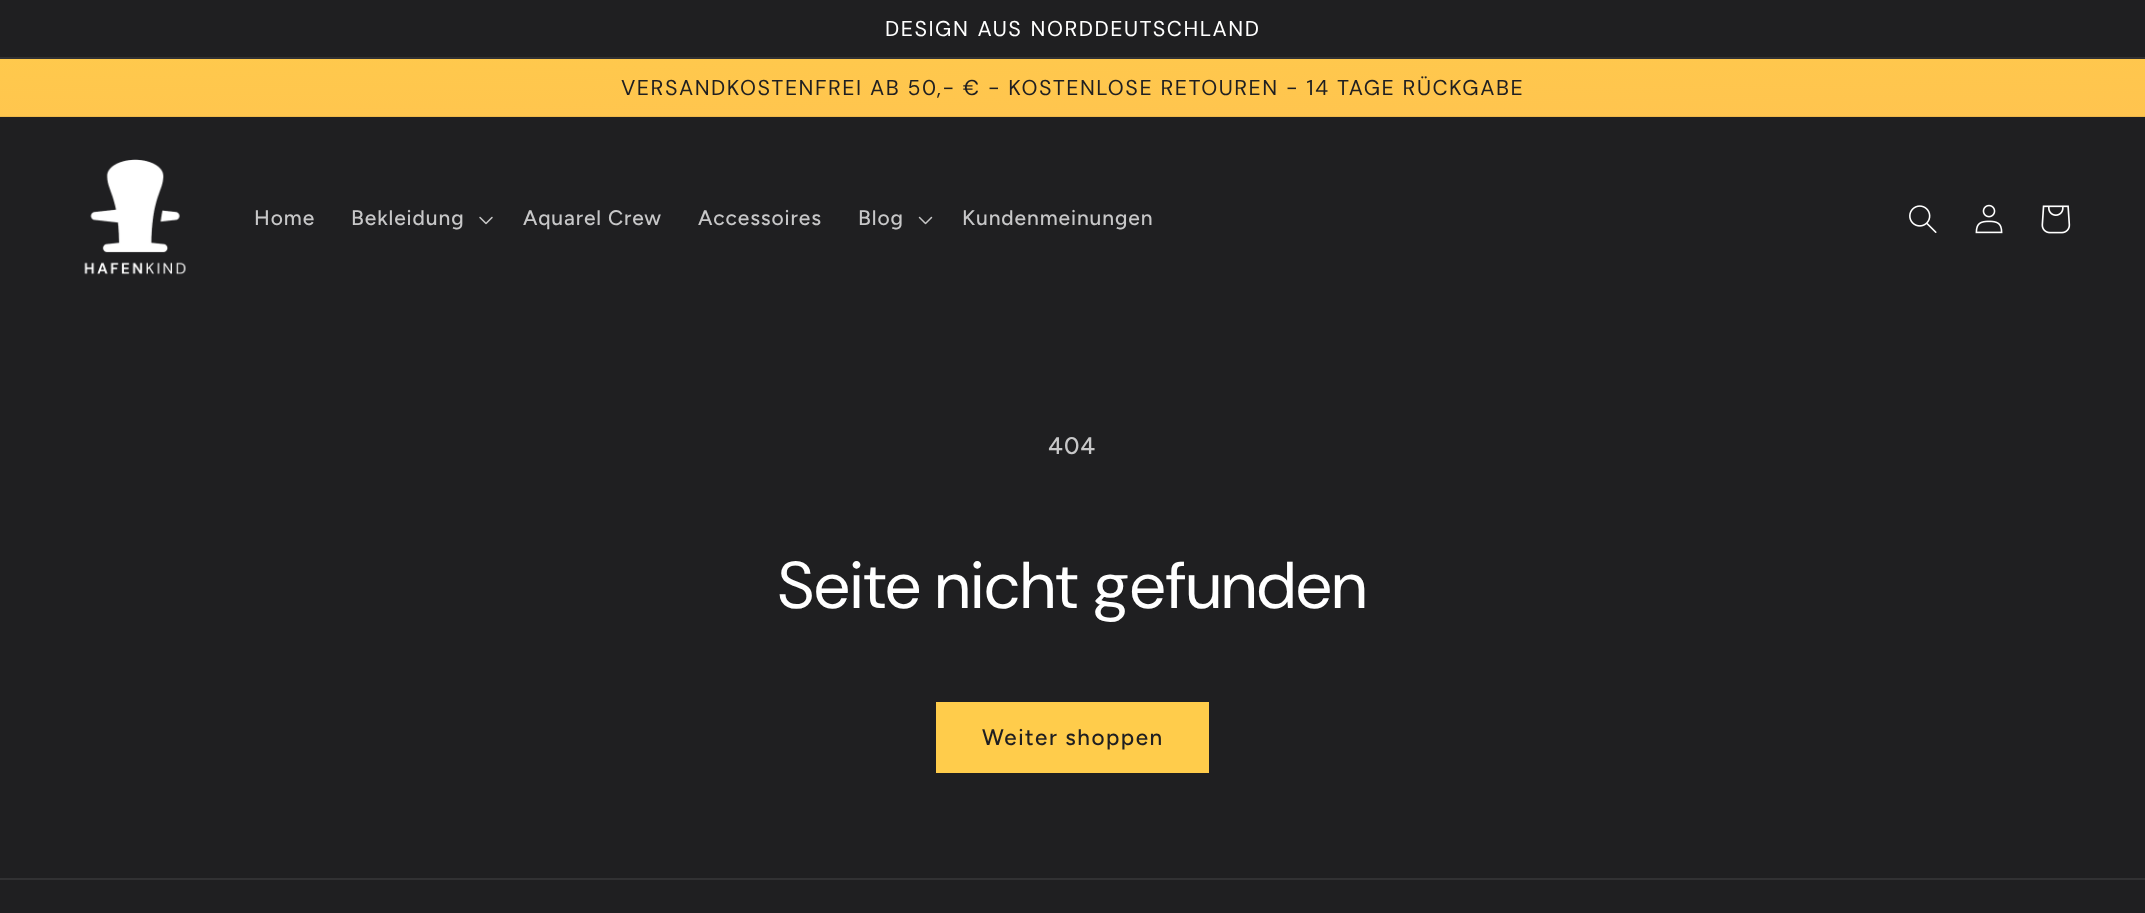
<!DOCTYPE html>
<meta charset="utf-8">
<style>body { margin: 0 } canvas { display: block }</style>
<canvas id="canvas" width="2145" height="913"></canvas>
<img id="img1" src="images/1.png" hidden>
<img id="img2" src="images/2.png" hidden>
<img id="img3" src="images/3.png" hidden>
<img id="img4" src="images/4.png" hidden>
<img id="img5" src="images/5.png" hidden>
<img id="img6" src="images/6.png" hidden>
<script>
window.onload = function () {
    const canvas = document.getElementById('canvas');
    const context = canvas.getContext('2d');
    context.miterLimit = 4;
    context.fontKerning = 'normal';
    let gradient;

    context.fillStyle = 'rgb(31, 31, 33)';
    context.fillRect(0, 0, 2145, 913);
    context.fillStyle = 'rgb(49, 49, 51)';
    context.fillRect(0, 57, 2145, 2);
    gradient = context.createLinearGradient(1081, 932, 1064, -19);
    gradient.addColorStop(0, 'rgb(255, 154, 98)');
    gradient.addColorStop(1, 'rgb(255, 204, 75)');
    context.fillStyle = gradient;
    context.fillRect(0, 59, 2145, 57);
    gradient = context.createLinearGradient(1081, 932, 1064, -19);
    gradient.addColorStop(0, 'rgb(237, 144, 93)');
    gradient.addColorStop(1, 'rgb(237, 190, 72)');
    context.fillStyle = gradient;
    context.fillRect(0, 116, 2145, 1);
    context.drawImage(document.getElementById('img1'), 84, 159, 102, 116);
    context.drawImage(document.getElementById('img2'), 479, 216, 14, 9);
    context.drawImage(document.getElementById('img3'), 918, 216, 15, 9);
    context.drawImage(document.getElementById('img4'), 1909, 205, 28, 28);
    context.drawImage(document.getElementById('img5'), 1975, 204, 28, 30);
    context.drawImage(document.getElementById('img6'), 2041, 205, 30, 29);
    context.fillStyle = 'rgb(255, 204, 75)';
    context.fillRect(936, 702, 273, 71);
    context.fillStyle = 'rgb(49, 49, 51)';
    context.fillRect(0, 878, 2145, 2);
    context.letterSpacing = '1.5px';
    context.wordSpacing = '1px';
    context.font = '21.45px "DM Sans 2"';
    context.fillStyle = 'rgb(255, 255, 255)';
    context.fillText('DESIGN AUS NORDDEUTSCHLAND', 885, 36);
    context.wordSpacing = '0px';
    context.fillStyle = 'rgb(31, 31, 33)';
    context.fillText('VERSANDKOSTENFREI AB 50,- € - KOSTENLOSE RETOUREN - 14 TAGE RÜCKGABE', 621, 95);
    context.letterSpacing = '0.9px';
    context.font = '500 21px Figtree';
    context.fillStyle = 'rgb(199, 199, 200)';
    context.fillText('Home', 254, 225);
    context.fillText('Bekleidung', 351, 225);
    context.fillText('Aquarel Crew', 523, 225);
    context.fillText('Accessoires', 698, 225);
    context.fillText('Blog', 858, 225);
    context.fillText('Kundenmeinungen', 962, 225);
    context.font = '500 24px Figtree';
    context.fillText('404', 1048, 454);
    context.letterSpacing = '1px';
    context.font = '66px DM Sans';
    context.fillStyle = 'rgb(255, 255, 255)';
    context.fillText('Seite nicht gefunden', 778, 608);
    context.letterSpacing = '1.5px';
    context.font = '500 22.5px Figtree';
    context.fillStyle = 'rgb(31, 31, 33)';
    context.fillText('Weiter shoppen', 982, 745);
};
</script>
